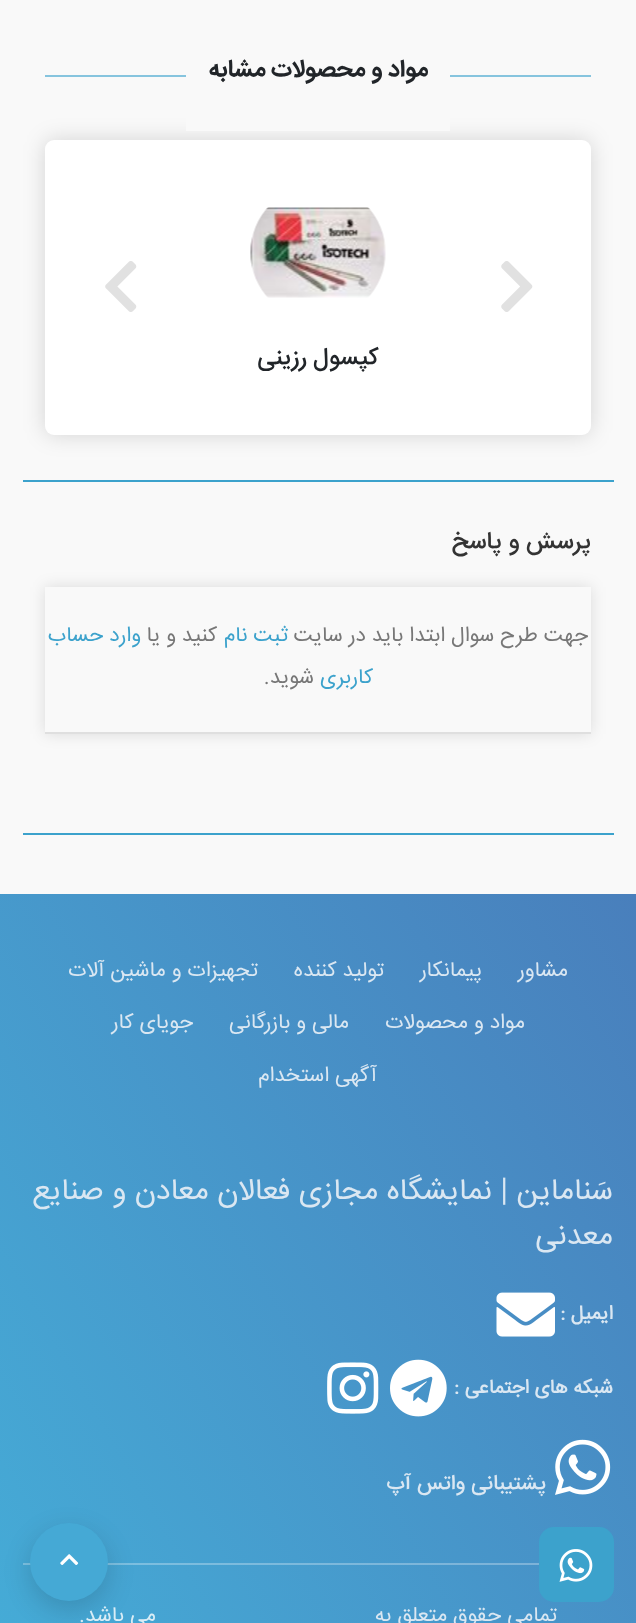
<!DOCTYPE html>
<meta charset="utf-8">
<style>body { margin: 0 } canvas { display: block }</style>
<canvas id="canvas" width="636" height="1623"></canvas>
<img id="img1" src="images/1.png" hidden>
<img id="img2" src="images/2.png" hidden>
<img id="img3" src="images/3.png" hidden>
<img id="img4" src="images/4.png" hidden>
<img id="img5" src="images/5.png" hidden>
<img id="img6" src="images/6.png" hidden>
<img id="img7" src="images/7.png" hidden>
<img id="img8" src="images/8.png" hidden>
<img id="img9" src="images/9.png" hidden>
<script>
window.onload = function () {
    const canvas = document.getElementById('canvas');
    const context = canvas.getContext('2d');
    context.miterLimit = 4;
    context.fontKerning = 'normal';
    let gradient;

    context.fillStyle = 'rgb(249, 249, 249)';
    context.fillRect(0, 0, 636, 1623);
    context.fillStyle = 'rgb(134, 196, 222)';
    context.fillRect(45, 75, 546, 2);
    context.fillStyle = 'rgba(0, 0, 0, 0.15)';
    context.filter = 'blur(11px)';
    context.beginPath();
    context.roundRect(45, 140, 546, 295, 9);
    context.fill();
    context.filter = 'none';
    context.fillStyle = 'rgb(249, 249, 249)';
    context.fillRect(186, 75, 264, 56);
    context.fillStyle = 'rgb(255, 255, 255)';
    context.beginPath();
    context.roundRect(45, 140, 546, 295, 9);
    context.fill();
    context.drawImage(document.getElementById('img1'), 501, 261, 32, 51);
    context.drawImage(document.getElementById('img2'), 105, 261, 32, 51);
    context.drawImage(document.getElementById('img3'), 250, 207, 136, 91);
    context.fillStyle = 'rgb(60, 162, 204)';
    context.fillRect(23, 480, 591, 2);
    context.save();
    context.beginPath();
    context.moveTo(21, 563);
    context.lineTo(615, 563);
    context.lineTo(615, 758);
    context.lineTo(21, 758);
    context.closePath();
    context.moveTo(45, 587);
    context.lineTo(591, 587);
    context.lineTo(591, 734);
    context.lineTo(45, 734);
    context.closePath();
    context.clip('evenodd');
    context.fillStyle = 'rgba(0, 0, 0, 0.12)';
    context.filter = 'blur(7.5px)';
    context.beginPath();
    context.rect(45, 587, 546, 147);
    context.fill();
    context.filter = 'none';
    context.restore();
    context.fillStyle = 'rgba(0, 0, 0, 0.1)';
    context.fillRect(45, 732, 546, 2);
    context.fillStyle = 'rgb(60, 162, 204)';
    context.fillRect(23, 833, 591, 2);
    gradient = context.createLinearGradient(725, 1048, -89, 1517);
    gradient.addColorStop(0, 'rgb(73, 127, 188)');
    gradient.addColorStop(1, 'rgb(69, 172, 215)');
    context.fillStyle = gradient;
    context.fillRect(0, 894, 636, 729);
    gradient = context.createLinearGradient(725, 1048, -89, 1517);
    gradient.addColorStop(0, 'rgb(126, 164, 207)');
    gradient.addColorStop(1, 'rgb(123, 196, 227)');
    context.fillStyle = gradient;
    context.fillRect(23, 1563, 516, 2);
    context.drawImage(document.getElementById('img4'), 496, 1292, 59, 45);
    context.drawImage(document.getElementById('img5'), 390, 1359, 57, 58);
    context.drawImage(document.getElementById('img6'), 327, 1362, 52, 52);
    context.drawImage(document.getElementById('img7'), 555, 1439, 56, 56);
    context.fillStyle = 'rgb(60, 162, 204)';
    context.beginPath();
    context.roundRect(539, 1527, 75, 75, 15);
    context.fill();
    context.drawImage(document.getElementById('img8'), 559, 1549, 34, 33);
    context.fillStyle = 'rgba(0, 0, 0, 0.15)';
    context.filter = 'blur(13.5px)';
    context.beginPath();
    context.roundRect(30, 1532, 78, 78, 39);
    context.fill();
    context.filter = 'none';
    context.fillStyle = 'rgb(69, 169, 213)';
    context.beginPath();
    context.arc(69, 1562, 39, 0, 2 * Math.PI);
    context.fill();
    context.drawImage(document.getElementById('img9'), 60, 1554, 19, 11);
    context.direction = 'rtl';
    context.font = 'bold 24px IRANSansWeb';
    context.fillStyle = 'rgb(33, 37, 41)';
    context.fillText('مواد و محصولات مشابه', 428, 76);
    context.font = '500 24px IRANSansWeb';
    context.fillText('کپسول رزینی', 378, 364);
    context.fillStyle = 'rgb(51, 51, 51)';
    context.fillText('پرسش و پاسخ', 591, 548);
    context.font = '21px IRANSansWeb';
    context.fillStyle = 'rgb(119, 119, 119)';
    context.fillText('جهت طرح سوال ابتدا باید در سایت', 588, 641);
    context.fillStyle = 'rgb(60, 162, 204)';
    context.fillText('ثبت نام', 288, 641);
    context.fillStyle = 'rgb(119, 119, 119)';
    context.fillText('کنید', 217, 641);
    context.fillText('و یا', 176, 641);
    context.fillStyle = 'rgb(60, 162, 204)';
    context.fillText('وارد حساب', 141, 641);
    context.fillText('کاربری', 373, 683);
    context.fillStyle = 'rgb(119, 119, 119)';
    context.fillText('شوید.', 314, 683);
    context.fillStyle = 'rgb(218, 231, 242)';
    context.fillText('مشاور', 568, 976);
    context.fillText('پیمانکار', 482, 976);
    context.fillText('تولید کننده', 384, 976);
    context.fillText('ﺗﺠﻬﻴﺰات و ماشین آلات', 258, 976);
    context.fillText('مواد و محصولات', 525, 1028);
    context.fillText('مالی و بازرگانی', 349, 1028);
    context.fillText('جویای کار', 193, 1028);
    context.fillText('آگهی استخدام', 377, 1081);
    context.font = '30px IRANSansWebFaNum';
    context.fillText('سَناماین | نمایشگاه مجازی فعالان معادن و صنایع', 613, 1199);
    context.fillText('معدنی', 613, 1244);
    context.font = 'bold 19.5px IRANSansWebFaNum';
    context.fillText('ایمیل :', 613, 1319);
    context.fillText('شبکه های اجتماعی :', 613, 1393);
    context.font = '500 21px IRANSansWeb';
    context.fillText('پشتیبانی واتس آپ', 546, 1489);
    context.font = '21px IRANSansWeb';
    context.fillText('تمامی حقوق متعلق به', 557, 1621);
    context.fillStyle = 'rgb(218, 237, 246)';
    context.fillText('می باشد.', 156, 1621);
};
</script>
